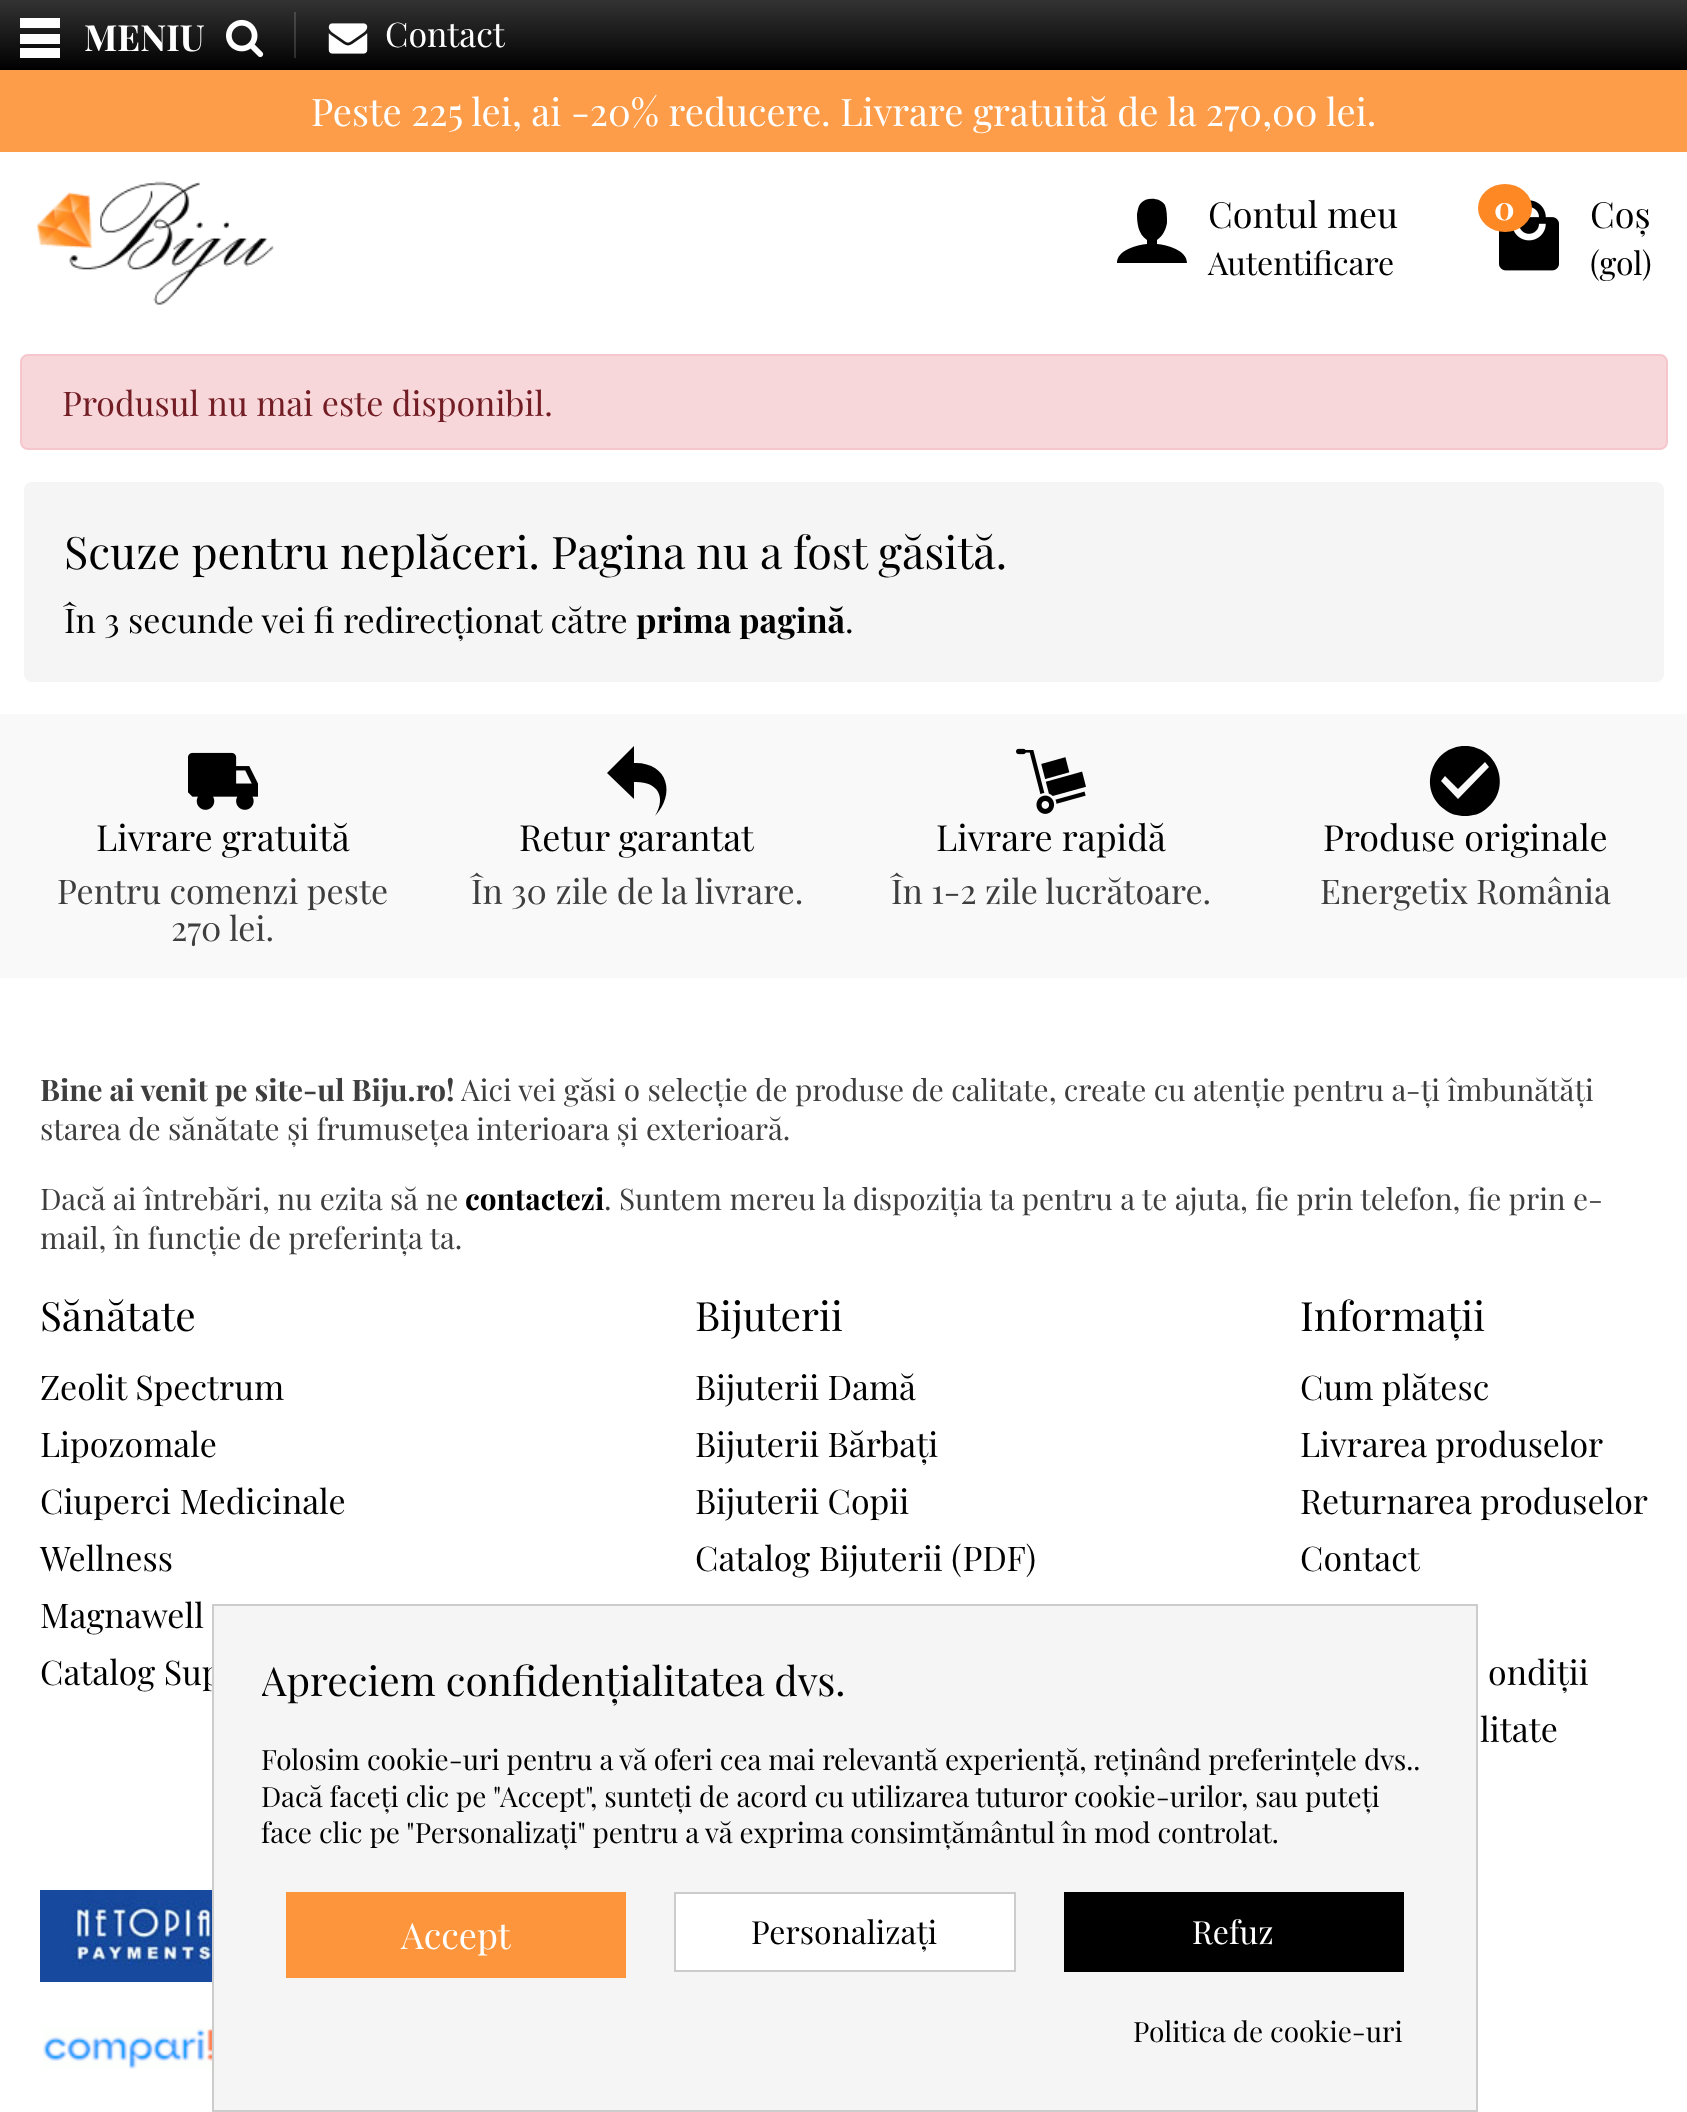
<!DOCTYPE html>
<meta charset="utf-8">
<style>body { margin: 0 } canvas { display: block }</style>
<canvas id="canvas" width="1687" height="2112"></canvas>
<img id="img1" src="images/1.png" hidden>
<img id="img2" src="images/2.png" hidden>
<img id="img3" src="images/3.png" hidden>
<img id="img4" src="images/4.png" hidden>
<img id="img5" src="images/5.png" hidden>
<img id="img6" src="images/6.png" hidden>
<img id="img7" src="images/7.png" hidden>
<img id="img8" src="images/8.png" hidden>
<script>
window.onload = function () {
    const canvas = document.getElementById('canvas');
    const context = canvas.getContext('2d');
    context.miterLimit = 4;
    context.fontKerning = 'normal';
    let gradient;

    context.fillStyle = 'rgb(255, 255, 255)';
    context.fillRect(0, 0, 1687, 2112);
    gradient = context.createLinearGradient(844, 0, 844, 70);
    gradient.addColorStop(0, 'rgb(51, 51, 51)');
    gradient.addColorStop(1, 'rgb(0, 0, 0)');
    context.fillStyle = gradient;
    context.fillRect(0, 0, 1687, 70);
    gradient = context.createLinearGradient(844, 0, 844, 70);
    gradient.addColorStop(0, 'rgb(82, 82, 82)');
    gradient.addColorStop(1, 'rgb(38, 38, 38)');
    context.fillStyle = gradient;
    context.fillRect(294, 12, 2, 46);
    context.fillStyle = 'rgb(255, 255, 255)';
    context.beginPath();
    context.moveTo(20, 18);
    context.lineTo(20, 28);
    context.lineTo(60, 28);
    context.lineTo(60, 18);
    context.closePath();
    context.moveTo(20, 44);
    context.lineTo(60, 44);
    context.lineTo(60, 34);
    context.lineTo(20, 34);
    context.closePath();
    context.moveTo(20, 58);
    context.lineTo(60, 58);
    context.lineTo(60, 48);
    context.lineTo(20, 48);
    context.closePath();
    context.fill();
    context.drawImage(document.getElementById('img1'), 226, 19, 38, 39);
    context.drawImage(document.getElementById('img2'), 328, 23, 40, 31);
    context.fillStyle = 'rgb(253, 156, 73)';
    context.fillRect(0, 70, 1687, 82);
    context.drawImage(document.getElementById('img3'), 36, 181, 238, 124);
    context.fillStyle = 'rgb(0, 0, 0)';
    context.beginPath();
    context.moveTo(1157, 244);
    context.lineTo(1157, 240);
    context.bezierCurveTo(1163, 236, 1166, 229, 1167, 223);
    context.bezierCurveTo(1167, 217, 1167, 210, 1165, 205);
    context.bezierCurveTo(1160, 197, 1146, 197, 1141, 203);
    context.bezierCurveTo(1138, 206, 1138, 210, 1137, 214);
    context.bezierCurveTo(1137, 223, 1138, 234, 1147, 240);
    context.lineTo(1147, 244);
    context.bezierCurveTo(1137, 245, 1117, 250, 1117, 263);
    context.lineTo(1187, 263);
    context.bezierCurveTo(1187, 250, 1167, 245, 1157, 244);
    context.closePath();
    context.fill();
    context.drawImage(document.getElementById('img4'), 1499, 200, 60, 71);
    context.fillStyle = 'rgb(253, 136, 36)';
    context.beginPath();
    context.ellipse(1505, 208, 27, 24, 0, 0, 2 * Math.PI);
    context.fill();
    context.fillStyle = 'rgb(248, 215, 218)';
    context.beginPath();
    context.roundRect(21, 355, 1646, 94, 7);
    context.fill();
    context.strokeStyle = 'rgb(245, 198, 203)';
    context.lineWidth = 2;
    context.stroke();
    context.fillStyle = 'rgb(245, 245, 245)';
    context.beginPath();
    context.roundRect(24, 482, 1640, 200, 8);
    context.fill();
    context.fillStyle = 'rgb(249, 249, 249)';
    context.fillRect(0, 714, 1687, 264);
    context.drawImage(document.getElementById('img5'), 188, 752, 70, 58);
    context.fillStyle = 'rgb(0, 0, 0)';
    context.beginPath();
    context.moveTo(655, 816);
    context.bezierCurveTo(667, 796, 657, 781, 634, 782);
    context.lineTo(634, 799);
    context.lineTo(607, 773);
    context.lineTo(634, 746);
    context.lineTo(634, 763);
    context.bezierCurveTo(668, 762, 676, 794, 655, 816);
    context.closePath();
    context.fill();
    context.drawImage(document.getElementById('img6'), 1016, 748, 70, 66);
    context.beginPath();
    context.moveTo(1458, 799);
    context.lineTo(1489, 767);
    context.lineTo(1485, 762);
    context.lineTo(1458, 789);
    context.lineTo(1445, 776);
    context.lineTo(1441, 781);
    context.closePath();
    context.moveTo(1465, 746);
    context.bezierCurveTo(1498, 746, 1513, 789, 1486, 809);
    context.bezierCurveTo(1480, 814, 1473, 816, 1465, 816);
    context.bezierCurveTo(1457, 816, 1450, 814, 1444, 809);
    context.bezierCurveTo(1417, 789, 1432, 746, 1465, 746);
    context.closePath();
    context.fill();
    context.drawImage(document.getElementById('img7'), 40, 1890, 172, 92);
    context.drawImage(document.getElementById('img8'), 43, 2027, 169, 42);
    context.font = 'bold 36px Playfair Display';
    context.fillStyle = 'rgb(255, 255, 255)';
    context.fillText('MENIU', 84, 51);
    context.font = '34px Playfair Display';
    context.fillText('Contact', 385, 47);
    context.font = '38px Playfair Display';
    context.fillText('Peste 225 lei, ai -20% reducere. Livrare gratuită de la 270,00 lei.', 311, 126);
    context.font = '36px Playfair Display';
    context.fillStyle = 'rgb(0, 0, 0)';
    context.fillText('Contul meu', 1208, 228);
    context.font = '32px Playfair Display';
    context.fillText('Autentificare', 1208, 275);
    context.font = 'bold 32px Playfair Display';
    context.fillStyle = 'rgb(255, 255, 255)';
    context.fillText('0', 1494, 220);
    context.font = '36px Playfair Display';
    context.fillStyle = 'rgb(0, 0, 0)';
    context.fillText('Coș', 1590, 228);
    context.font = '32px Playfair Display';
    context.fillText('(gol)', 1590, 275);
    context.font = '34px Playfair Display';
    context.fillStyle = 'rgb(114, 28, 36)';
    context.fillText('Produsul nu mai este disponibil.', 62, 416);
    context.font = '44.9px Playfair Display';
    context.fillStyle = 'rgb(0, 0, 0)';
    context.fillText('Scuze pentru neplăceri. Pagina nu a fost găsită.', 64, 569);
    context.font = '34px Playfair Display';
    context.fillText('În 3 secunde vei fi redirecționat către', 64, 633);
    context.font = 'bold 34px Playfair Display';
    context.fillText('prima pagină', 636, 633);
    context.font = '34px Playfair Display';
    context.fillText('.', 845, 633);
    context.font = '36px Playfair Display';
    context.fillText('Livrare gratuită', 96, 851);
    context.font = '34px Playfair Display';
    context.fillStyle = 'rgb(62, 62, 62)';
    context.fillText('Pentru comenzi peste', 57, 904);
    context.fillText('270 lei.', 171, 941);
    context.font = '36px Playfair Display';
    context.fillStyle = 'rgb(0, 0, 0)';
    context.fillText('Retur garantat', 519, 851);
    context.font = '34px Playfair Display';
    context.fillStyle = 'rgb(62, 62, 62)';
    context.fillText('În 30 zile de la livrare.', 471, 904);
    context.font = '36px Playfair Display';
    context.fillStyle = 'rgb(0, 0, 0)';
    context.fillText('Livrare rapidă', 936, 851);
    context.font = '34px Playfair Display';
    context.fillStyle = 'rgb(62, 62, 62)';
    context.fillText('În 1-2 zile lucrătoare.', 891, 904);
    context.font = '36px Playfair Display';
    context.fillStyle = 'rgb(0, 0, 0)';
    context.fillText('Produse originale', 1323, 851);
    context.font = '34px Playfair Display';
    context.fillStyle = 'rgb(62, 62, 62)';
    context.fillText('Energetix România', 1320, 904);
    context.font = 'bold 29.75px Playfair Display';
    context.fillText('Bine ai venit pe site-ul Biju.ro!', 40, 1101);
    context.font = '29.75px Playfair Display';
    context.fillText('Aici vei găsi o selecție de produse de calitate, create cu atenție pentru a-ți îmbunătăți', 461, 1101);
    context.fillText('starea de sănătate și frumusețea interioara și exterioară.', 40, 1140);
    context.fillText('Dacă ai întrebări, nu ezita să ne', 40, 1210);
    context.font = 'bold 29.75px Playfair Display';
    context.fillStyle = 'rgb(0, 0, 0)';
    context.fillText('contactezi', 465, 1210);
    context.font = '29.75px Playfair Display';
    context.fillStyle = 'rgb(62, 62, 62)';
    context.fillText('. Suntem mereu la dispoziția ta pentru a te ajuta, fie prin telefon, fie prin e-', 604, 1210);
    context.fillText('mail, în funcție de preferința ta.', 40, 1249);
    context.font = '40.5px Playfair Display';
    context.fillStyle = 'rgb(0, 0, 0)';
    context.fillText('Sănătate', 40, 1331);
    context.font = '34px Playfair Display';
    context.fillText('Zeolit Spectrum', 40, 1400);
    context.fillText('Lipozomale', 40, 1457);
    context.fillText('Ciuperci Medicinale', 40, 1514);
    context.fillText('Wellness', 40, 1571);
    context.fillText('Magnawell', 40, 1628);
    context.fillText('Catalog Sup', 40, 1685);
    context.font = '40.5px Playfair Display';
    context.fillText('Bijuterii', 695, 1331);
    context.font = '34px Playfair Display';
    context.fillText('Bijuterii Damă', 695, 1400);
    context.fillText('Bijuterii Bărbați', 695, 1457);
    context.fillText('Bijuterii Copii', 695, 1514);
    context.fillText('Catalog Bijuterii (PDF)', 695, 1571);
    context.font = '40.5px Playfair Display';
    context.fillText('Informații', 1300, 1331);
    context.font = '34px Playfair Display';
    context.fillText('Cum plătesc', 1300, 1400);
    context.fillText('Livrarea produselor', 1300, 1457);
    context.fillText('Returnarea produselor', 1300, 1514);
    context.fillText('Contact', 1300, 1571);
    context.fillText('ondiții', 1488, 1685);
    context.fillText('litate', 1480, 1742);
    context.fillStyle = 'rgb(245, 245, 245)';
    context.beginPath();
    context.rect(213, 1605, 1264, 506);
    context.fill();
    context.strokeStyle = 'rgb(204, 204, 204)';
    context.stroke();
    context.save();
    context.beginPath();
    context.rect(262, 1654, 1166, 198);
    context.clip();
    context.font = '40.5px Playfair Display';
    context.fillStyle = 'rgb(0, 0, 0)';
    context.fillText('Apreciem confidențialitatea dvs.', 261, 1696);
    context.restore();
    context.font = '28px Playfair Display';
    context.fillStyle = 'rgb(0, 0, 0)';
    context.fillText('Folosim cookie-uri pentru a vă oferi cea mai relevantă experiență, reținând preferințele dvs..', 261, 1770);
    context.fillText('Dacă faceți clic pe "Accept", sunteți de acord cu utilizarea tuturor cookie-urilor, sau puteți', 261, 1807);
    context.fillText('face clic pe "Personalizați" pentru a vă exprima consimțământul în mod controlat.', 261, 1843);
    context.fillStyle = 'rgb(253, 149, 60)';
    context.fillRect(286, 1892, 340, 86);
    context.font = '36px Playfair Display';
    context.fillStyle = 'rgb(255, 255, 255)';
    context.fillText('Accept', 401, 1949);
    context.beginPath();
    context.rect(675, 1893, 340, 78);
    context.fill();
    context.stroke();
    context.font = '32px Playfair Display';
    context.fillStyle = 'rgb(0, 0, 0)';
    context.fillText('Personalizați', 751, 1944);
    context.fillRect(1064, 1892, 340, 80);
    context.fillStyle = 'rgb(255, 255, 255)';
    context.fillText('Refuz', 1192, 1944);
    context.font = '28px Playfair Display';
    context.fillStyle = 'rgb(0, 0, 0)';
    context.fillText('Politica de cookie-uri', 1133, 2042);
};
</script>
